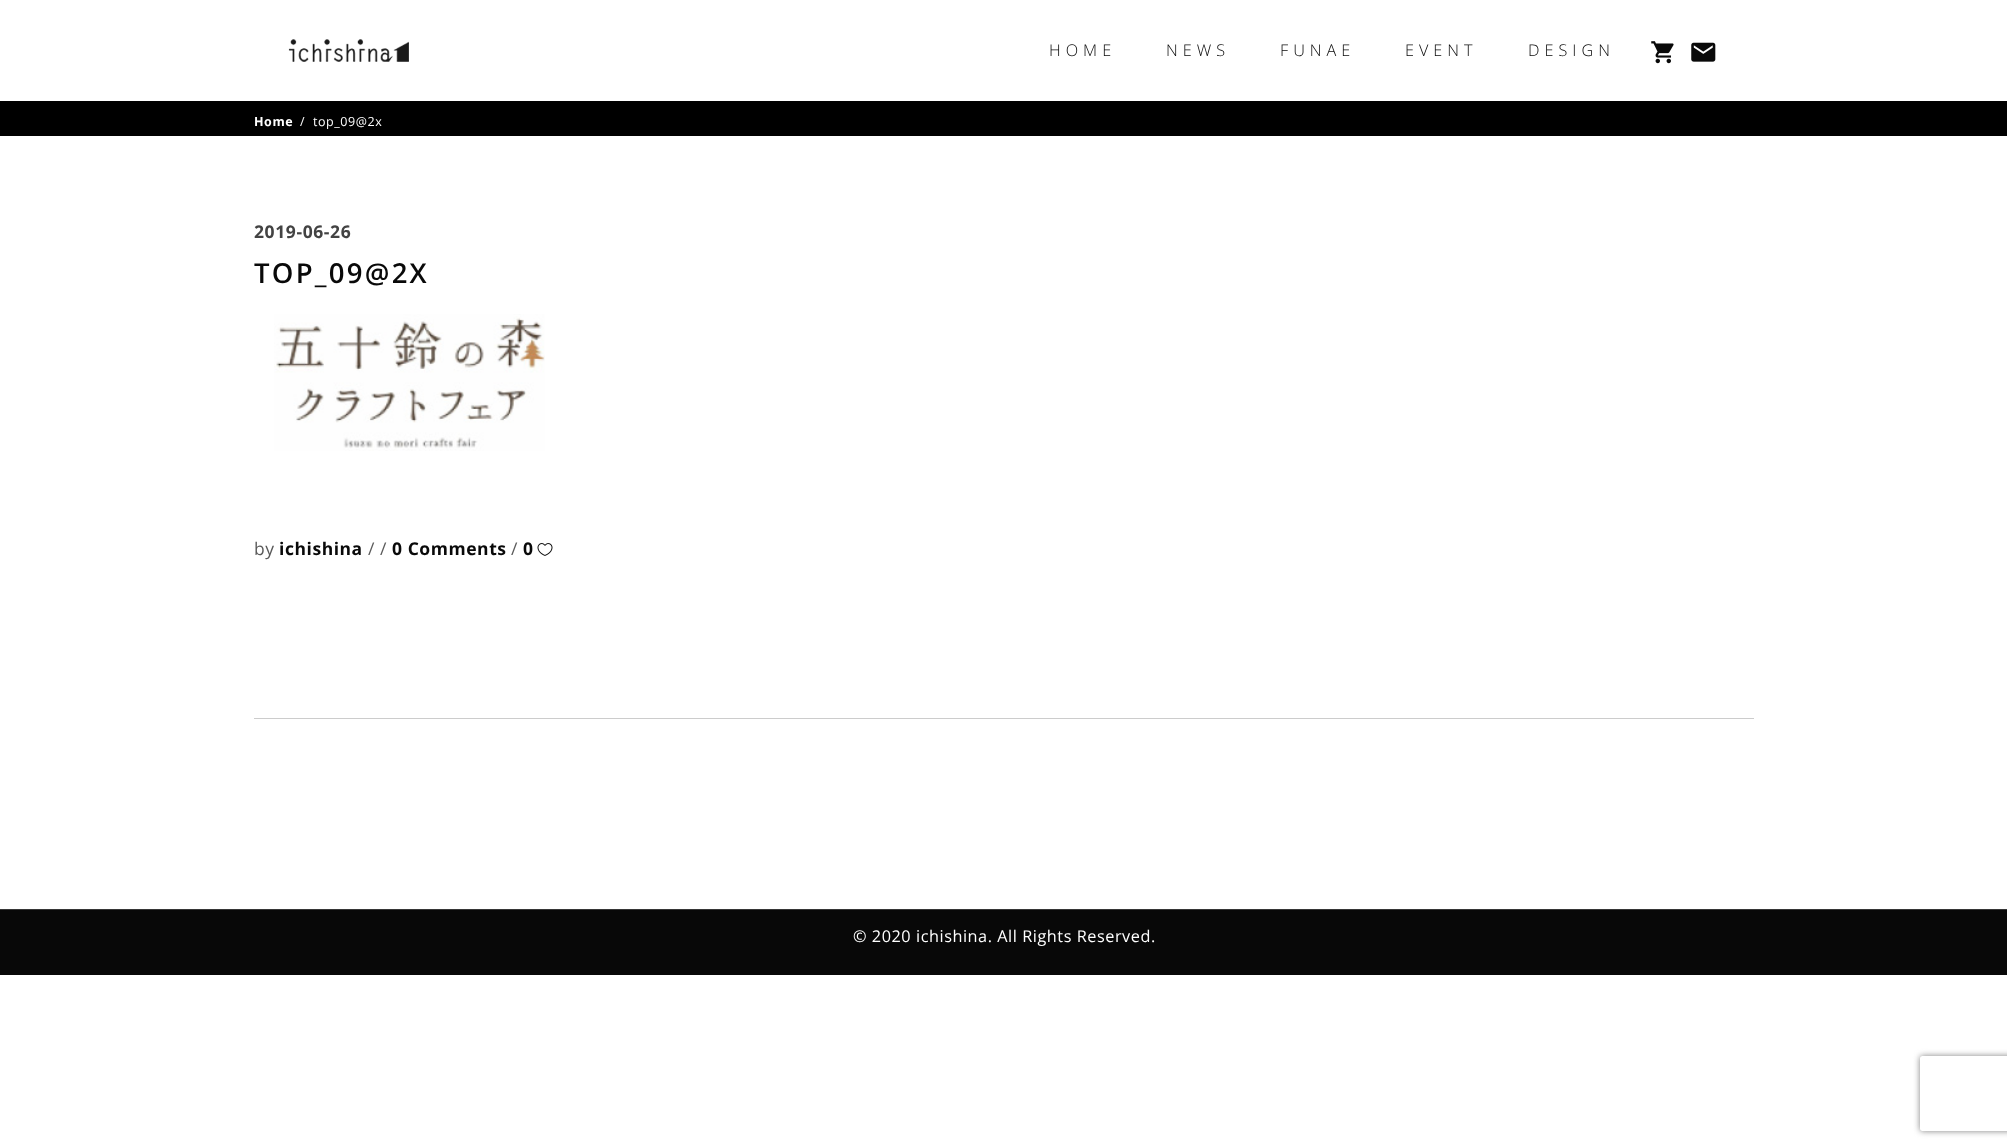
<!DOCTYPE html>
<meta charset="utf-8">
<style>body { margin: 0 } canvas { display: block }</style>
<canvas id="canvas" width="2007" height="1148"></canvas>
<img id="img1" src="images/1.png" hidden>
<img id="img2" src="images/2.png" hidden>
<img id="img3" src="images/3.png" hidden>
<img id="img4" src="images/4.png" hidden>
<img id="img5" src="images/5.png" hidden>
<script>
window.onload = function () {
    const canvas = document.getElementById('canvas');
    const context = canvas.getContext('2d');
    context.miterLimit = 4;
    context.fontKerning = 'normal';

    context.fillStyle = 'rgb(255, 255, 255)';
    context.fillRect(0, 0, 2007, 1148);
    context.drawImage(document.getElementById('img1'), 288, 39, 121, 23);
    context.drawImage(document.getElementById('img2'), 1651, 41, 23, 23);
    context.drawImage(document.getElementById('img3'), 1691, 42, 25, 20);
    context.fillStyle = 'rgb(0, 0, 0)';
    context.fillRect(0, 101, 2007, 35);
    context.drawImage(document.getElementById('img4'), 274, 314, 271, 137);
    context.drawImage(document.getElementById('img5'), 537, 543, 16, 13);
    context.fillStyle = 'rgb(204, 204, 204)';
    context.fillRect(254, 718, 1500, 1);
    context.fillStyle = 'rgb(8, 8, 8)';
    context.fillRect(0, 910, 2007, 65);
    context.fillStyle = 'rgb(54, 54, 54)';
    context.fillRect(0, 909, 2007, 1);
    context.save();
    context.beginPath();
    context.moveTo(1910, 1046);
    context.lineTo(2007, 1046);
    context.lineTo(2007, 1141);
    context.lineTo(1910, 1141);
    context.closePath();
    context.moveTo(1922.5, 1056);
    context.lineTo(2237.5, 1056);
    context.bezierCurveTo(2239, 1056, 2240, 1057, 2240, 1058.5);
    context.lineTo(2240, 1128.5);
    context.bezierCurveTo(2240, 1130, 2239, 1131, 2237.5, 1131);
    context.lineTo(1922.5, 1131);
    context.bezierCurveTo(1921, 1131, 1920, 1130, 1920, 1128.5);
    context.lineTo(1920, 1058.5);
    context.bezierCurveTo(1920, 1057, 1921, 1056, 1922.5, 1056);
    context.closePath();
    context.clip('evenodd');
    context.fillStyle = 'rgb(128, 128, 128)';
    context.filter = 'blur(3px)';
    context.beginPath();
    context.roundRect(1920, 1056, 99, 75, 2.5);
    context.fill();
    context.filter = 'none';
    context.restore();
    context.letterSpacing = '5px';
    context.font = '300 16.25px Open Sans';
    context.fillStyle = 'rgb(9, 9, 9)';
    context.fillText('HOME', 1049, 56);
    context.fillText('NEWS', 1166, 56);
    context.fillText('FUNAE', 1280, 56);
    context.fillText('EVENT', 1405, 56);
    context.fillText('DESIGN', 1528, 56);
    context.letterSpacing = '0.55px';
    context.font = 'bold 12.5px Open Sans';
    context.fillStyle = 'rgb(255, 255, 255)';
    context.fillText('Home', 254, 126);
    context.font = '12.5px Open Sans';
    context.fillText('/', 300, 126);
    context.fillText('top_09@2x', 313, 126);
    context.letterSpacing = '0.6px';
    context.font = 'bold 17.5px Open Sans';
    context.fillStyle = 'rgb(67, 67, 67)';
    context.fillText('2019-06-26', 254, 238);
    context.letterSpacing = '2.25px';
    context.font = '600 27.5px Open Sans';
    context.fillStyle = 'rgb(9, 9, 9)';
    context.fillText('TOP_09@2X', 254, 283);
    context.letterSpacing = '0.55px';
    context.font = '17.5px Open Sans';
    context.fillStyle = 'rgb(90, 90, 90)';
    context.fillText('by', 254, 555);
    context.font = 'bold 17.5px Open Sans';
    context.fillStyle = 'rgb(9, 9, 9)';
    context.fillText('ichishina', 279, 555);
    context.font = '17.5px Open Sans';
    context.fillStyle = 'rgb(90, 90, 90)';
    context.fillText('/ /', 368, 555);
    context.font = 'bold 17.5px Open Sans';
    context.fillStyle = 'rgb(9, 9, 9)';
    context.fillText('0 Comments', 392, 555);
    context.font = '17.5px Open Sans';
    context.fillStyle = 'rgb(90, 90, 90)';
    context.fillText('/', 511, 555);
    context.font = 'bold 17.5px Open Sans';
    context.fillStyle = 'rgb(9, 9, 9)';
    context.fillText('0', 523, 555);
    context.font = '16.25px Open Sans';
    context.fillStyle = 'rgb(255, 255, 255)';
    context.fillText('© 2020 ichishina. All Rights Reserved.', 853, 942);
};
</script>
